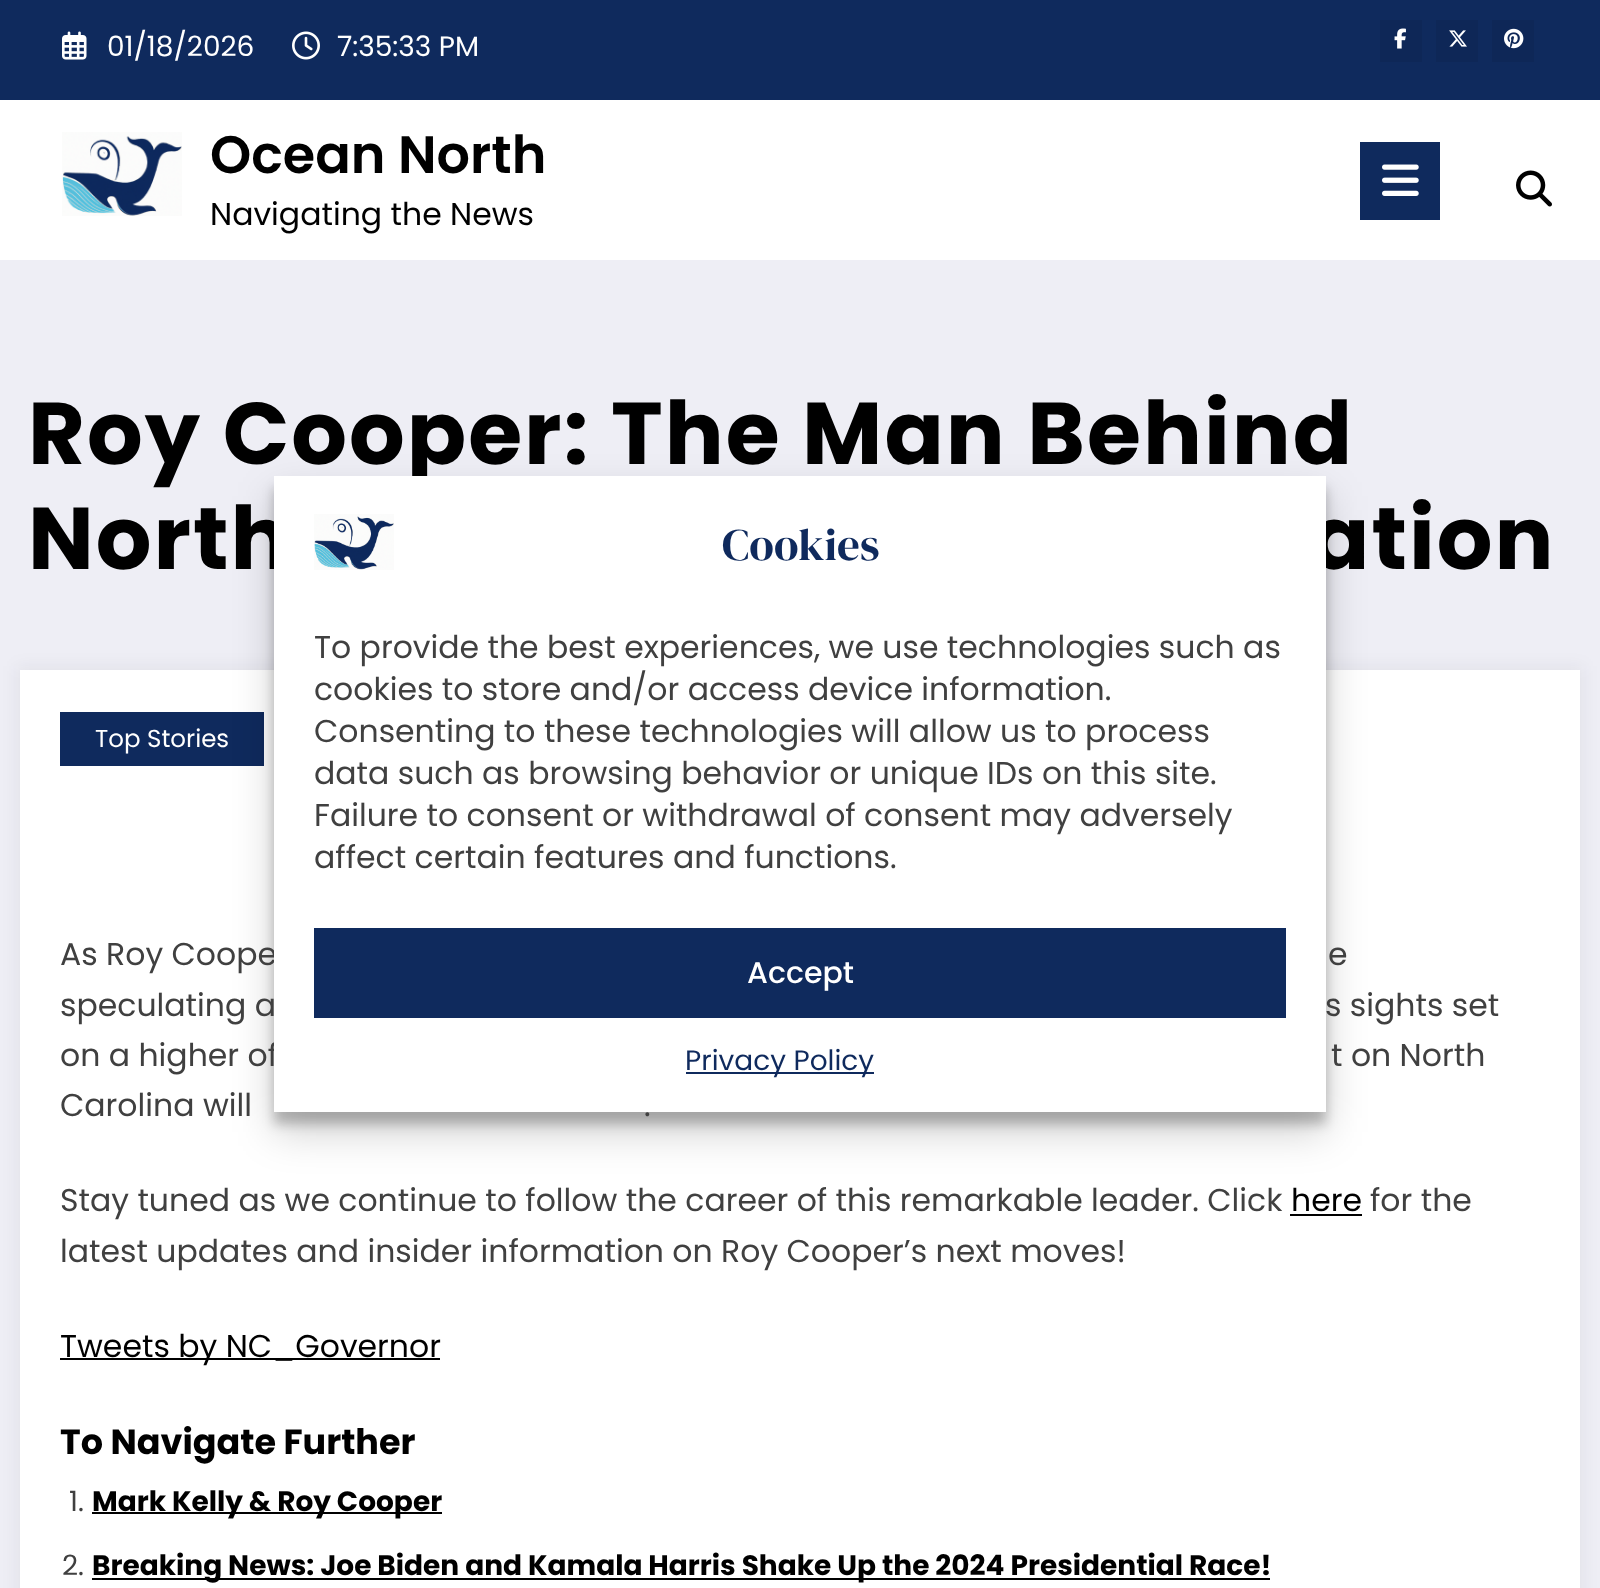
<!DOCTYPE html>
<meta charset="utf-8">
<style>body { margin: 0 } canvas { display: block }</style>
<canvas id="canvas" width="1600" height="1588"></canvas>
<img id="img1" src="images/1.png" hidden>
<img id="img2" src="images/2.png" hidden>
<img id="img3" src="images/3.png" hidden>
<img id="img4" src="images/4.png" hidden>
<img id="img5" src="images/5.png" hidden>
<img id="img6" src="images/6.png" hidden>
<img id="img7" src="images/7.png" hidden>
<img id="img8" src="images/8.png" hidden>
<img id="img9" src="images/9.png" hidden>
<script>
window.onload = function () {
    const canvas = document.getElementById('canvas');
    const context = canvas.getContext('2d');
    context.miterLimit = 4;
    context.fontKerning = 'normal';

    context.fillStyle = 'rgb(238, 238, 245)';
    context.fillRect(0, 0, 1600, 1588);
    context.fillStyle = 'rgb(15, 42, 93)';
    context.fillRect(0, 0, 1600, 100);
    context.drawImage(document.getElementById('img1'), 62, 31, 25, 29);
    context.drawImage(document.getElementById('img2'), 292, 31, 28, 29);
    context.fillStyle = 'rgb(14, 39, 87)';
    context.fillRect(1380, 20, 42, 42);
    context.drawImage(document.getElementById('img3'), 1394, 28, 12, 21);
    context.fillRect(1436, 20, 42, 42);
    context.drawImage(document.getElementById('img4'), 1449, 30, 18, 17);
    context.fillRect(1492, 20, 42, 42);
    context.drawImage(document.getElementById('img5'), 1504, 28, 20, 21);
    context.fillStyle = 'rgb(255, 255, 255)';
    context.fillRect(0, 100, 1600, 160);
    context.drawImage(document.getElementById('img6'), 62, 132, 120, 84);
    context.fillStyle = 'rgb(15, 42, 93)';
    context.fillRect(1360, 142, 80, 78);
    context.drawImage(document.getElementById('img7'), 1382, 164, 37, 32);
    context.drawImage(document.getElementById('img8'), 1516, 170, 36, 37);
    context.fillStyle = 'rgba(23, 23, 35, 0.05)';
    context.filter = 'blur(8px)';
    context.beginPath();
    context.rect(16, 666, 1568, 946);
    context.fill();
    context.filter = 'none';
    context.fillStyle = 'rgb(255, 255, 255)';
    context.fillRect(20, 670, 1560, 918);
    context.fillStyle = 'rgb(15, 42, 93)';
    context.fillRect(60, 712, 204, 54);
    context.fillStyle = 'rgb(0, 0, 0)';
    context.fillRect(1290, 1214, 72, 2);
    context.fillRect(60, 1358, 380, 2);
    context.fillRect(92, 1512, 350, 2);
    context.fillRect(92, 1578, 1178, 2);
    context.fillStyle = 'rgba(0, 0, 0, 0.23)';
    context.filter = 'blur(6px)';
    context.beginPath();
    context.rect(274, 488, 1052, 636);
    context.fill();
    context.filter = 'none';
    context.fillStyle = 'rgba(0, 0, 0, 0.19)';
    context.filter = 'blur(20px)';
    context.beginPath();
    context.rect(274, 496, 1052, 636);
    context.fill();
    context.filter = 'none';
    context.font = '28px Poppins';
    context.fillStyle = 'rgb(255, 255, 255)';
    context.fillText('01/18/2026', 107, 56);
    context.fillText('7:35:33 PM', 337, 56);
    context.font = '600 52.5px Poppins';
    context.fillStyle = 'rgb(0, 0, 0)';
    context.fillText('Ocean North', 210, 173);
    context.font = '31.5px Poppins';
    context.fillText('Navigating the News', 210, 225);
    context.letterSpacing = '2px';
    context.font = 'bold 87.5px Poppins';
    context.fillText('Roy Cooper: The Man Behind', 28, 464);
    context.fillText('North', 28, 569);
    context.fillText('ation', 1310, 569);
    context.letterSpacing = '0px';
    context.font = '24.5px Poppins';
    context.fillStyle = 'rgb(255, 255, 255)';
    context.fillText('Top Stories', 95, 747);
    context.font = '31.5px Poppins';
    context.fillStyle = 'rgb(64, 64, 64)';
    context.fillText('As Roy Coope', 60, 965);
    context.fillText('e', 1328, 965);
    context.fillText('speculating a', 60, 1016);
    context.fillText('s sights set', 1325, 1016);
    context.fillText('on a higher of', 60, 1066);
    context.fillText('t on North', 1331, 1066);
    context.fillText('Carolina will', 60, 1116);
    context.fillText('.', 644, 1116);
    context.fillText('Stay tuned as we continue to follow the career of this remarkable leader. Click', 60, 1211);
    context.fillStyle = 'rgb(0, 0, 0)';
    context.fillText('here', 1291, 1211);
    context.fillStyle = 'rgb(64, 64, 64)';
    context.fillText('for the', 1370, 1211);
    context.fillText('latest updates and insider information on Roy Cooper’s next moves!', 60, 1262);
    context.fillStyle = 'rgb(0, 0, 0)';
    context.fillText('Tweets by NC_Governor', 60, 1357);
    context.font = 'bold 35px Poppins';
    context.fillText('To Navigate Further', 60, 1454);
    context.font = '28px Poppins';
    context.fillStyle = 'rgb(64, 64, 64)';
    context.fillText('1.', 69, 1511);
    context.font = 'bold 28px Poppins';
    context.fillStyle = 'rgb(0, 0, 0)';
    context.fillText('Mark Kelly & Roy Cooper', 92, 1511);
    context.font = '28px Poppins';
    context.fillStyle = 'rgb(64, 64, 64)';
    context.fillText('2.', 62, 1575);
    context.font = 'bold 28px Poppins';
    context.fillStyle = 'rgb(0, 0, 0)';
    context.fillText('Breaking News: Joe Biden and Kamala Harris Shake Up the 2024 Presidential Race!', 92, 1575);
    context.fillStyle = 'rgb(255, 255, 255)';
    context.fillRect(274, 476, 1052, 636);
    context.drawImage(document.getElementById('img9'), 314, 514, 80, 56);
    context.font = '45px DM Serif Display';
    context.fillStyle = 'rgb(15, 42, 93)';
    context.fillText('Cookies', 722, 560);
    context.font = '31.5px Poppins';
    context.fillStyle = 'rgb(64, 64, 64)';
    context.fillText('To provide the best experiences, we use technologies such as', 314, 658);
    context.fillText('cookies to store and/or access device information.', 314, 700);
    context.fillText('Consenting to these technologies will allow us to process', 314, 742);
    context.fillText('data such as browsing behavior or unique IDs on this site.', 314, 784);
    context.fillText('Failure to consent or withdrawal of consent may adversely', 314, 826);
    context.fillText('affect certain features and functions.', 314, 868);
    context.fillStyle = 'rgb(15, 42, 93)';
    context.fillRect(314, 928, 972, 90);
    context.font = '500 30px Poppins';
    context.fillStyle = 'rgb(255, 255, 255)';
    context.fillText('Accept', 747, 983);
    context.fillStyle = 'rgb(15, 42, 93)';
    context.fillRect(686, 1072, 188, 2);
    context.font = '28px Poppins';
    context.fillText('Privacy Policy', 685, 1070);
};
</script>
